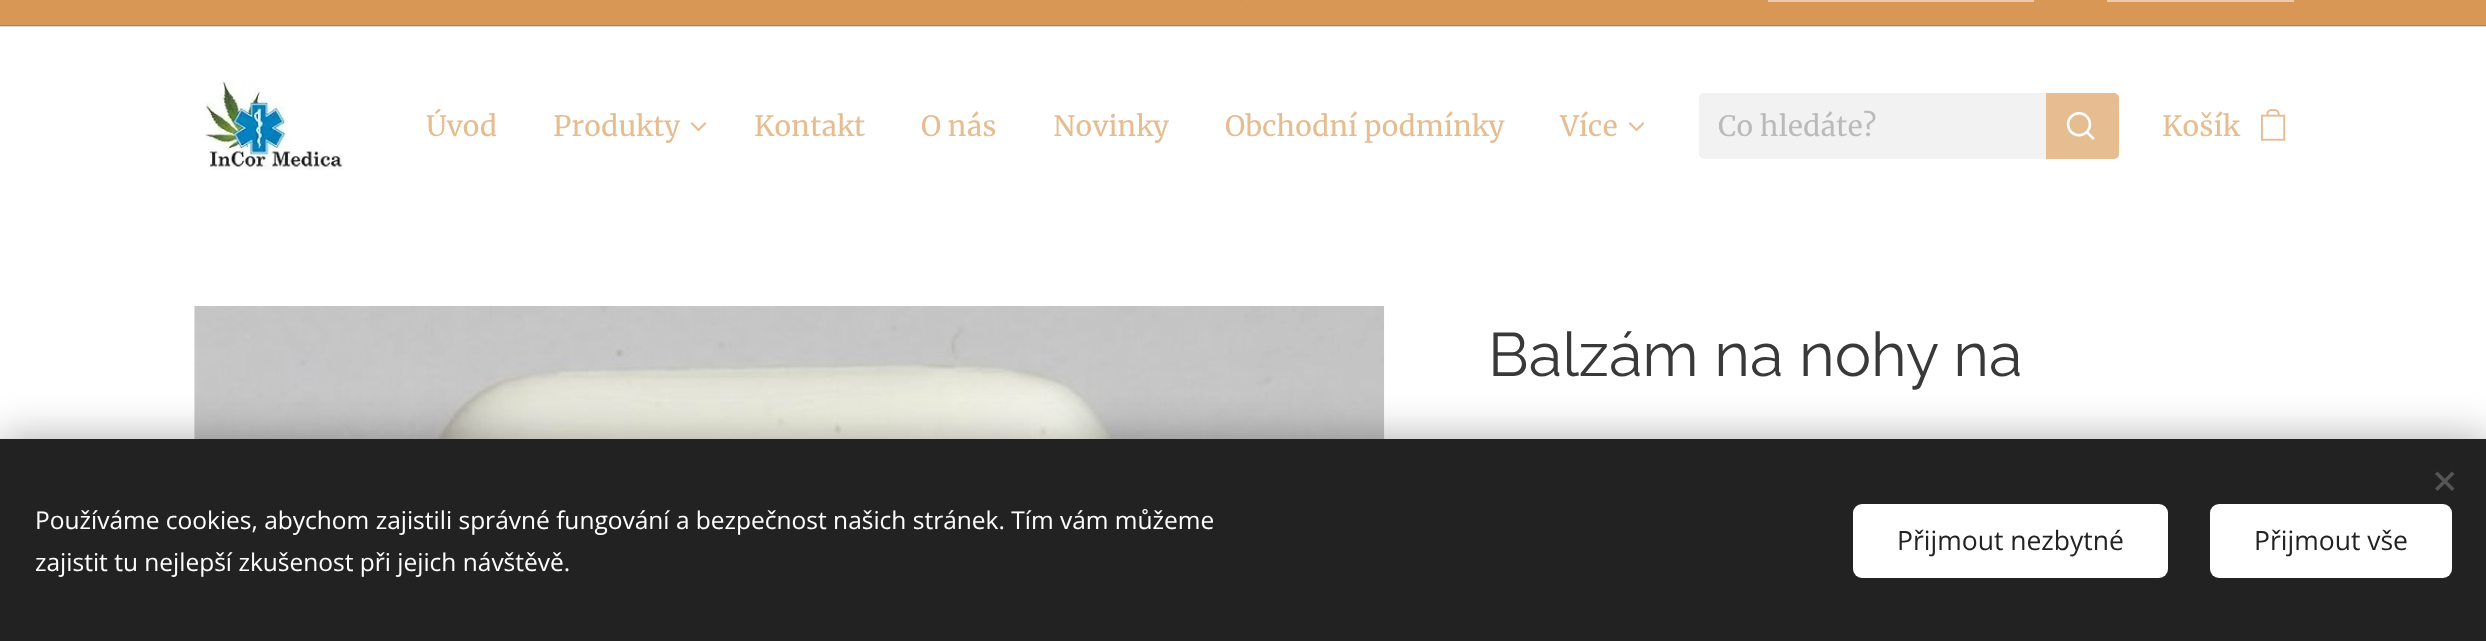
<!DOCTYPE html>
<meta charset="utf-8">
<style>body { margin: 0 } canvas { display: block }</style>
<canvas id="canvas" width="2486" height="641"></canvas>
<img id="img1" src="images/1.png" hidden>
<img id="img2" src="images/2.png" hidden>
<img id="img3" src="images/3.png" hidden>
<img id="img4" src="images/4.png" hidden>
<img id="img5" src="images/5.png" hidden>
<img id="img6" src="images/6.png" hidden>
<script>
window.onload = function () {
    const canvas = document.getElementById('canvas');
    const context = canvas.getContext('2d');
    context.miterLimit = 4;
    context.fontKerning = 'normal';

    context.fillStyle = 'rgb(255, 255, 255)';
    context.fillRect(0, 0, 2486, 641);
    context.fillStyle = 'rgb(217, 217, 217)';
    context.fillRect(0, 26, 2486, 1);
    context.fillStyle = 'rgb(216, 151, 84)';
    context.fillRect(0, 0, 2486, 25);
    context.fillStyle = 'rgb(184, 128, 71)';
    context.fillRect(0, 25, 2486, 1);
    context.drawImage(document.getElementById('img1'), 1246, 0, 2, 1);
    context.fillStyle = 'rgb(236, 203, 170)';
    context.fillRect(1768, 0, 266, 2);
    context.fillRect(2107, 0, 187, 2);
    context.drawImage(document.getElementById('img2'), 205, 80, 139, 90);
    context.drawImage(document.getElementById('img3'), 690, 122, 17, 10);
    context.drawImage(document.getElementById('img3'), 1628, 122, 17, 10);
    context.fillStyle = 'rgb(242, 242, 242)';
    context.beginPath();
    context.roundRect(1699, 93, 347, 66, [5, 0, 0, 5]);
    context.fill();
    context.fillStyle = 'rgb(230, 188, 145)';
    context.beginPath();
    context.roundRect(2046, 93, 73, 66, [0, 5, 5, 0]);
    context.fill();
    context.drawImage(document.getElementById('img4'), 2066, 112, 29, 28);
    context.drawImage(document.getElementById('img5'), 2261, 109, 25, 32);
    context.drawImage(document.getElementById('img6'), 194, 306, 1191, 133);
    context.fillStyle = 'rgba(0, 0, 0, 0.33)';
    context.filter = 'blur(22px)';
    context.beginPath();
    context.rect(0, 439, 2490, 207);
    context.fill();
    context.filter = 'none';
    context.fillStyle = 'rgb(34, 34, 34)';
    context.fillRect(0, 439, 2486, 202);
    context.fillStyle = 'rgb(85, 85, 85)';
    context.beginPath();
    context.moveTo(2435, 488.5);
    context.lineTo(2452, 471.5);
    context.lineTo(2454.5, 474);
    context.lineTo(2437.5, 491);
    context.closePath();
    context.fill();
    context.beginPath();
    context.moveTo(2437.5, 471.5);
    context.lineTo(2454.5, 488.5);
    context.lineTo(2452, 491);
    context.lineTo(2435, 474);
    context.closePath();
    context.fill();
    context.fillStyle = 'rgb(255, 255, 255)';
    context.beginPath();
    context.roundRect(1853, 504, 315, 74, 9);
    context.fill();
    context.beginPath();
    context.roundRect(2210, 504, 242, 74, 9);
    context.fill();
    context.font = '28px Merriweather';
    context.fillStyle = 'rgb(230, 188, 145)';
    context.fillText('Úvod', 426, 136);
    context.fillText('Produkty', 553, 136);
    context.fillText('Kontakt', 754, 136);
    context.fillText('O nás', 921, 136);
    context.fillText('Novinky', 1053, 136);
    context.fillText('Obchodní podmínky', 1225, 136);
    context.fillText('Více', 1560, 136);
    context.save();
    context.beginPath();
    context.rect(1719, 109, 309, 35);
    context.clip();
    context.fillStyle = 'rgb(186, 186, 186)';
    context.fillText('Co hledáte?', 1718, 136);
    context.restore();
    context.fillText('Košík', 2162, 136);
    context.font = '61.25px Raleway';
    context.fillStyle = 'rgb(57, 57, 57)';
    context.fillText('Balzám na nohy na', 1488, 376);
    context.font = '24.5px Open Sans';
    context.fillStyle = 'rgb(255, 255, 255)';
    context.fillText('Používáme cookies, abychom zajistili správné fungování a bezpečnost našich stránek. Tím vám můžeme', 35, 529);
    context.fillText('zajistit tu nejlepší zkušenost při jejich návštěvě.', 35, 571);
    context.font = '26.5px Open Sans';
    context.fillStyle = 'rgb(34, 34, 34)';
    context.fillText('Přijmout nezbytné', 1897, 550);
    context.fillText('Přijmout vše', 2254, 550);
};
</script>
